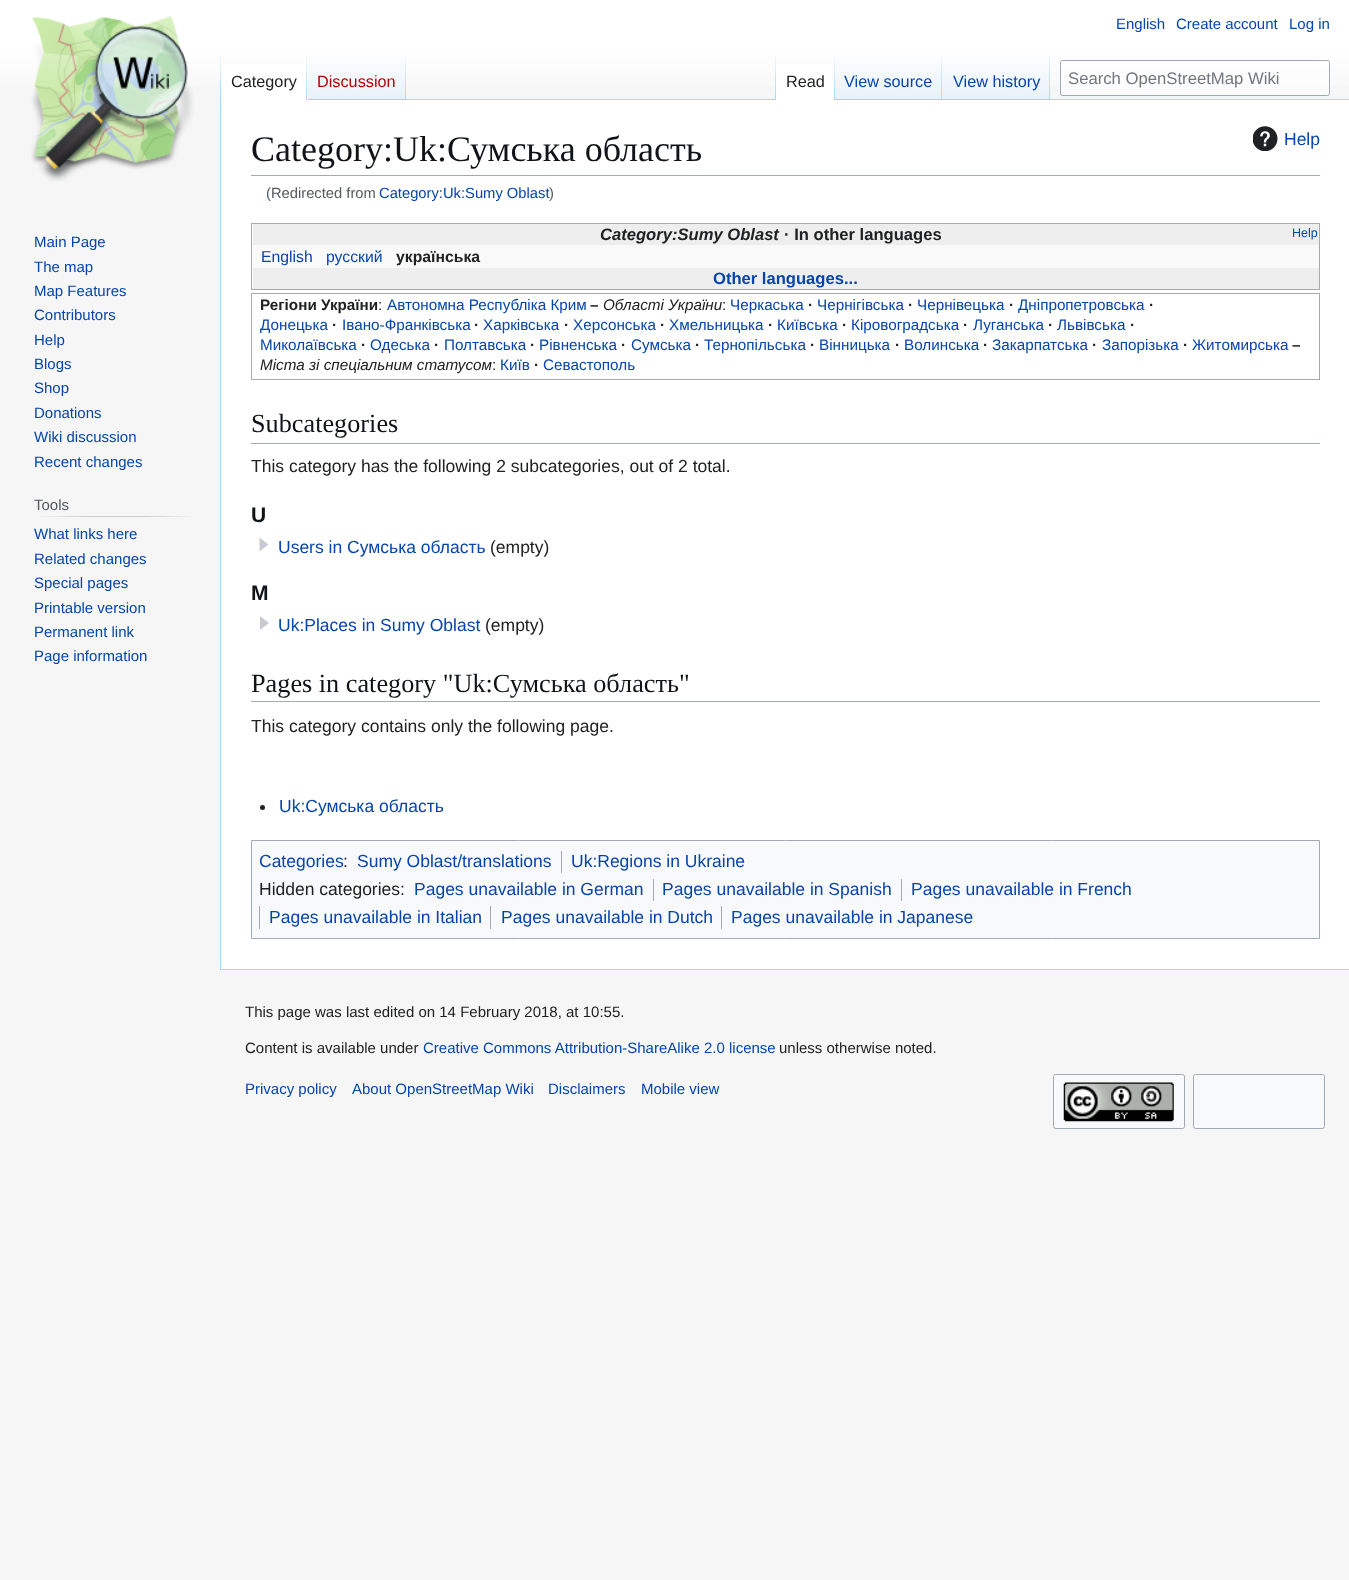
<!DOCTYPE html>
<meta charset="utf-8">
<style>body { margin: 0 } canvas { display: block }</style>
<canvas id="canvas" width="1349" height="1580"></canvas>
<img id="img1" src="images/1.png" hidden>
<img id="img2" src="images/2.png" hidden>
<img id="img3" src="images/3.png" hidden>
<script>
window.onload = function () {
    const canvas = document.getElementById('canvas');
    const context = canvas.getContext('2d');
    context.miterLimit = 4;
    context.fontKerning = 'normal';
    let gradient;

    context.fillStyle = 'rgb(246, 246, 246)';
    context.fillRect(0, 0, 1349, 1580);
    gradient = context.createLinearGradient(675, 0, 675, 100);
    gradient.addColorStop(0.5, 'rgb(255, 255, 255)');
    gradient.addColorStop(1, 'rgb(246, 246, 246)');
    context.fillStyle = gradient;
    context.fillRect(0, 0, 1349, 86);
    context.fillStyle = 'rgb(167, 215, 249)';
    context.fillRect(220, 969, 1129, 1);
    context.fillRect(220, 99, 1, 871);
    gradient = context.createLinearGradient(221, 50, 221, 100);
    gradient.addColorStop(0, 'rgba(167, 215, 249, 0)');
    gradient.addColorStop(1, 'rgb(167, 215, 249)');
    context.fillStyle = gradient;
    context.fillRect(220, 50, 1, 50);
    context.fillStyle = 'rgb(255, 255, 255)';
    context.fillRect(221, 64, 87, 36);
    gradient = context.createLinearGradient(307, 50, 307, 100);
    gradient.addColorStop(0, 'rgb(255, 255, 255)');
    gradient.addColorStop(1, 'rgb(167, 215, 249)');
    context.fillStyle = gradient;
    context.fillRect(306, 50, 1, 50);
    gradient = context.createLinearGradient(357, 100, 357, 50);
    gradient.addColorStop(0, 'rgb(119, 193, 246)');
    gradient.addColorStop(0.03, 'rgb(232, 242, 248)');
    gradient.addColorStop(1, 'rgb(255, 255, 255)');
    context.fillStyle = gradient;
    context.fillRect(308, 57, 98, 43);
    gradient = context.createLinearGradient(406, 50, 406, 100);
    gradient.addColorStop(0, 'rgba(167, 215, 249, 0)');
    gradient.addColorStop(1, 'rgb(167, 215, 249)');
    context.fillStyle = gradient;
    context.fillRect(405, 50, 1, 50);
    context.fillStyle = 'rgb(167, 215, 249)';
    context.fillRect(406, 99, 943, 1);
    gradient = context.createLinearGradient(776, 50, 776, 100);
    gradient.addColorStop(0, 'rgba(167, 215, 249, 0)');
    gradient.addColorStop(1, 'rgb(167, 215, 249)');
    context.fillStyle = gradient;
    context.fillRect(775, 50, 1, 50);
    context.fillStyle = 'rgb(255, 255, 255)';
    context.fillRect(776, 64, 58, 36);
    gradient = context.createLinearGradient(834, 50, 834, 100);
    gradient.addColorStop(0, 'rgb(255, 255, 255)');
    gradient.addColorStop(1, 'rgb(167, 215, 249)');
    context.fillStyle = gradient;
    context.fillRect(834, 50, 1, 50);
    gradient = context.createLinearGradient(889, 100, 889, 50);
    gradient.addColorStop(0, 'rgb(119, 193, 246)');
    gradient.addColorStop(0.03, 'rgb(232, 242, 248)');
    gradient.addColorStop(1, 'rgb(255, 255, 255)');
    context.fillStyle = gradient;
    context.fillRect(835, 57, 108, 43);
    gradient = context.createLinearGradient(942, 50, 942, 100);
    gradient.addColorStop(0, 'rgba(167, 215, 249, 0)');
    gradient.addColorStop(1, 'rgb(167, 215, 249)');
    context.fillStyle = gradient;
    context.fillRect(941, 50, 1, 50);
    gradient = context.createLinearGradient(996, 100, 996, 50);
    gradient.addColorStop(0, 'rgb(119, 193, 246)');
    gradient.addColorStop(0.03, 'rgb(232, 242, 248)');
    gradient.addColorStop(1, 'rgb(255, 255, 255)');
    context.fillStyle = gradient;
    context.fillRect(943, 57, 107, 43);
    gradient = context.createLinearGradient(1049, 50, 1049, 100);
    gradient.addColorStop(0, 'rgba(167, 215, 249, 0)');
    gradient.addColorStop(1, 'rgb(167, 215, 249)');
    context.fillStyle = gradient;
    context.fillRect(1049, 50, 1, 50);
    context.fillStyle = 'rgba(255, 255, 255, 0.5)';
    context.beginPath();
    context.roundRect(1060.5, 60.5, 269, 35, 2);
    context.fill();
    context.strokeStyle = 'rgb(162, 169, 177)';
    context.stroke();
    context.drawImage(document.getElementById('img1'), 31, 16, 163, 166);
    gradient = context.createLinearGradient(34, 517, 198, 517);
    gradient.addColorStop(0, 'rgb(246, 246, 246)');
    gradient.addColorStop(0.33, 'rgb(200, 204, 209)');
    gradient.addColorStop(0.66, 'rgb(200, 204, 209)');
    gradient.addColorStop(1, 'rgb(246, 246, 246)');
    context.fillStyle = gradient;
    context.fillRect(34, 516, 164, 1);
    context.fillStyle = 'rgb(255, 255, 255)';
    context.fillRect(221, 100, 1128, 869);
    context.fillStyle = 'rgb(162, 169, 177)';
    context.fillRect(251, 175, 1069, 1);
    context.drawImage(document.getElementById('img2'), 1253, 126, 25, 25);
    context.strokeStyle = 'rgb(170, 170, 170)';
    context.strokeRect(251.5, 223.5, 1068, 66);
    context.fillStyle = 'rgb(238, 238, 238)';
    context.fillRect(253, 224, 1066, 21);
    context.fillStyle = 'rgb(249, 249, 249)';
    context.fillRect(253, 245, 1066, 23);
    context.fillStyle = 'rgb(238, 238, 238)';
    context.fillRect(253, 268, 1066, 21);
    context.strokeRect(251.5, 293.5, 1068, 86);
    context.fillStyle = 'rgb(162, 169, 177)';
    context.fillRect(251, 443, 1069, 1);
    context.fillStyle = 'rgb(200, 204, 209)';
    context.beginPath();
    context.moveTo(268.5, 544.5);
    context.lineTo(259.5, 551.5);
    context.lineTo(259.5, 537.5);
    context.closePath();
    context.fill();
    context.beginPath();
    context.moveTo(269, 623);
    context.lineTo(260, 630);
    context.lineTo(260, 616);
    context.closePath();
    context.fill();
    context.fillStyle = 'rgb(162, 169, 177)';
    context.fillRect(251, 701, 1069, 1);
    context.fillStyle = 'rgb(32, 33, 34)';
    context.beginPath();
    context.arc(262.5, 807.5, 2.5, 0, 2 * Math.PI);
    context.fill();
    context.fillStyle = 'rgb(248, 249, 250)';
    context.beginPath();
    context.rect(251.5, 840.5, 1068, 98);
    context.fill();
    context.strokeStyle = 'rgb(162, 169, 177)';
    context.stroke();
    context.fillStyle = 'rgb(162, 169, 177)';
    context.fillRect(561, 851, 1, 22);
    context.fillRect(653, 879, 1, 22);
    context.fillRect(901, 879, 1, 22);
    context.fillRect(259, 906, 1, 23);
    context.fillRect(490, 906, 1, 23);
    context.fillRect(721, 906, 1, 23);
    context.fillStyle = 'rgb(248, 249, 250)';
    context.beginPath();
    context.roundRect(1053.5, 1074.5, 131, 54, 2);
    context.fill();
    context.stroke();
    context.drawImage(document.getElementById('img3'), 1063, 1082, 111, 40);
    context.beginPath();
    context.roundRect(1193.5, 1074.5, 131, 54, 2);
    context.fill();
    context.stroke();
    context.font = '15px Liberation Sans';
    context.fillStyle = 'rgb(6, 69, 173)';
    context.fillText('English', 1116, 29);
    context.fillText('Create account', 1176, 29);
    context.fillText('Log in', 1289, 29);
    context.font = '16.25px Liberation Sans';
    context.fillStyle = 'rgb(32, 33, 34)';
    context.fillText('Category', 231, 87);
    context.fillStyle = 'rgb(186, 0, 0)';
    context.fillText('Discussion', 317, 87);
    context.fillStyle = 'rgb(32, 33, 34)';
    context.fillText('Read', 786, 87);
    context.fillStyle = 'rgb(6, 69, 173)';
    context.fillText('View source', 844, 87);
    context.fillText('View history', 953, 87);
    context.font = '16.7px Liberation Sans';
    context.fillStyle = 'rgb(114, 119, 125)';
    context.fillText('Search OpenStreetMap Wiki', 1068, 84);
    context.font = '15px Liberation Sans';
    context.fillStyle = 'rgb(6, 69, 173)';
    context.fillText('Main Page', 34, 247);
    context.fillText('The map', 34, 272);
    context.fillText('Map Features', 34, 296);
    context.fillText('Contributors', 34, 320);
    context.fillText('Help', 34, 345);
    context.fillText('Blogs', 34, 369);
    context.fillText('Shop', 34, 393);
    context.fillText('Donations', 34, 418);
    context.fillText('Wiki discussion', 34, 442);
    context.fillText('Recent changes', 34, 467);
    context.fillStyle = 'rgb(84, 89, 93)';
    context.fillText('Tools', 34, 510);
    context.fillStyle = 'rgb(6, 69, 173)';
    context.fillText('What links here', 34, 539);
    context.fillText('Related changes', 34, 564);
    context.fillText('Special pages', 34, 588);
    context.fillText('Printable version', 34, 613);
    context.fillText('Permanent link', 34, 637);
    context.fillText('Page information', 34, 661);
    context.font = '36px Liberation Serif';
    context.fillStyle = 'rgb(16, 20, 24)';
    context.fillText('Category:Uk:Сумська область', 251, 161);
    context.font = '17.5px Liberation Sans';
    context.fillStyle = 'rgb(6, 69, 173)';
    context.fillText('Help', 1284, 145);
    context.font = '14.75px Liberation Sans';
    context.fillStyle = 'rgb(84, 89, 93)';
    context.fillText('(Redirected from', 266, 198);
    context.fillStyle = 'rgb(6, 69, 173)';
    context.fillText('Category:Uk:Sumy Oblast', 379, 198);
    context.fillStyle = 'rgb(84, 89, 93)';
    context.fillText(')', 549, 198);
    context.font = 'italic bold 16.6px Liberation Sans';
    context.fillStyle = 'rgb(32, 33, 34)';
    context.fillText('Category:Sumy Oblast', 600, 240);
    context.font = 'bold 16.6px Liberation Sans';
    context.fillText('· In other languages', 784, 240);
    context.font = '12.5px Liberation Sans';
    context.fillStyle = 'rgb(6, 69, 173)';
    context.fillText('Help', 1292, 237);
    context.font = '15.75px Liberation Sans';
    context.fillText('English', 261, 262);
    context.fillText('русский', 326, 262);
    context.font = 'bold 15.75px Liberation Sans';
    context.fillStyle = 'rgb(32, 33, 34)';
    context.fillText('українська', 396, 262);
    context.font = 'bold 16.6px Liberation Sans';
    context.fillStyle = 'rgb(6, 69, 173)';
    context.fillText('Other languages...', 713, 284);
    context.font = 'bold 15.25px Liberation Sans';
    context.fillStyle = 'rgb(32, 33, 34)';
    context.fillText('Регіони України', 260, 310);
    context.font = '15.25px Liberation Sans';
    context.fillText(':', 378, 310);
    context.fillStyle = 'rgb(6, 69, 173)';
    context.fillText('Автономна Республіка Крим', 387, 310);
    context.font = 'bold 15.25px Liberation Sans';
    context.fillStyle = 'rgb(32, 33, 34)';
    context.fillText('–', 590, 310);
    context.font = 'italic 15.25px Liberation Sans';
    context.fillText('Області України', 603, 310);
    context.font = '15.25px Liberation Sans';
    context.fillText(':', 722, 310);
    context.fillStyle = 'rgb(6, 69, 173)';
    context.fillText('Черкаська', 730, 310);
    context.font = 'bold 15.25px Liberation Sans';
    context.fillStyle = 'rgb(32, 33, 34)';
    context.fillText('·', 808, 310);
    context.font = '15.25px Liberation Sans';
    context.fillStyle = 'rgb(6, 69, 173)';
    context.fillText('Чернігівська', 817, 310);
    context.font = 'bold 15.25px Liberation Sans';
    context.fillStyle = 'rgb(32, 33, 34)';
    context.fillText('·', 908, 310);
    context.font = '15.25px Liberation Sans';
    context.fillStyle = 'rgb(6, 69, 173)';
    context.fillText('Чернівецька', 917, 310);
    context.font = 'bold 15.25px Liberation Sans';
    context.fillStyle = 'rgb(32, 33, 34)';
    context.fillText('·', 1009, 310);
    context.font = '15.25px Liberation Sans';
    context.fillStyle = 'rgb(6, 69, 173)';
    context.fillText('Дніпропетровська', 1018, 310);
    context.font = 'bold 15.25px Liberation Sans';
    context.fillStyle = 'rgb(32, 33, 34)';
    context.fillText('·', 1149, 310);
    context.font = '15.25px Liberation Sans';
    context.fillStyle = 'rgb(6, 69, 173)';
    context.fillText('Донецька', 260, 330);
    context.font = 'bold 15.25px Liberation Sans';
    context.fillStyle = 'rgb(32, 33, 34)';
    context.fillText('·', 332, 330);
    context.font = '15.25px Liberation Sans';
    context.fillStyle = 'rgb(6, 69, 173)';
    context.fillText('Івано-Франківська', 342, 330);
    context.font = 'bold 15.25px Liberation Sans';
    context.fillStyle = 'rgb(32, 33, 34)';
    context.fillText('·', 474, 330);
    context.font = '15.25px Liberation Sans';
    context.fillStyle = 'rgb(6, 69, 173)';
    context.fillText('Харківська', 483, 330);
    context.font = 'bold 15.25px Liberation Sans';
    context.fillStyle = 'rgb(32, 33, 34)';
    context.fillText('·', 564, 330);
    context.font = '15.25px Liberation Sans';
    context.fillStyle = 'rgb(6, 69, 173)';
    context.fillText('Херсонська', 573, 330);
    context.font = 'bold 15.25px Liberation Sans';
    context.fillStyle = 'rgb(32, 33, 34)';
    context.fillText('·', 660, 330);
    context.font = '15.25px Liberation Sans';
    context.fillStyle = 'rgb(6, 69, 173)';
    context.fillText('Хмельницька', 669, 330);
    context.font = 'bold 15.25px Liberation Sans';
    context.fillStyle = 'rgb(32, 33, 34)';
    context.fillText('·', 768, 330);
    context.font = '15.25px Liberation Sans';
    context.fillStyle = 'rgb(6, 69, 173)';
    context.fillText('Київська', 777, 330);
    context.font = 'bold 15.25px Liberation Sans';
    context.fillStyle = 'rgb(32, 33, 34)';
    context.fillText('·', 842, 330);
    context.font = '15.25px Liberation Sans';
    context.fillStyle = 'rgb(6, 69, 173)';
    context.fillText('Кіровоградська', 851, 330);
    context.font = 'bold 15.25px Liberation Sans';
    context.fillStyle = 'rgb(32, 33, 34)';
    context.fillText('·', 963, 330);
    context.font = '15.25px Liberation Sans';
    context.fillStyle = 'rgb(6, 69, 173)';
    context.fillText('Луганська', 973, 330);
    context.font = 'bold 15.25px Liberation Sans';
    context.fillStyle = 'rgb(32, 33, 34)';
    context.fillText('·', 1048, 330);
    context.font = '15.25px Liberation Sans';
    context.fillStyle = 'rgb(6, 69, 173)';
    context.fillText('Львівська', 1057, 330);
    context.font = 'bold 15.25px Liberation Sans';
    context.fillStyle = 'rgb(32, 33, 34)';
    context.fillText('·', 1130, 330);
    context.font = '15.25px Liberation Sans';
    context.fillStyle = 'rgb(6, 69, 173)';
    context.fillText('Миколаївська', 260, 350);
    context.font = 'bold 15.25px Liberation Sans';
    context.fillStyle = 'rgb(32, 33, 34)';
    context.fillText('·', 361, 350);
    context.font = '15.25px Liberation Sans';
    context.fillStyle = 'rgb(6, 69, 173)';
    context.fillText('Одеська', 370, 350);
    context.font = 'bold 15.25px Liberation Sans';
    context.fillStyle = 'rgb(32, 33, 34)';
    context.fillText('·', 434, 350);
    context.font = '15.25px Liberation Sans';
    context.fillStyle = 'rgb(6, 69, 173)';
    context.fillText('Полтавська', 444, 350);
    context.font = 'bold 15.25px Liberation Sans';
    context.fillStyle = 'rgb(32, 33, 34)';
    context.fillText('·', 530, 350);
    context.font = '15.25px Liberation Sans';
    context.fillStyle = 'rgb(6, 69, 173)';
    context.fillText('Рівненська', 539, 350);
    context.font = 'bold 15.25px Liberation Sans';
    context.fillStyle = 'rgb(32, 33, 34)';
    context.fillText('·', 621, 350);
    context.font = '15.25px Liberation Sans';
    context.fillStyle = 'rgb(6, 69, 173)';
    context.fillText('Сумська', 631, 350);
    context.font = 'bold 15.25px Liberation Sans';
    context.fillStyle = 'rgb(32, 33, 34)';
    context.fillText('·', 695, 350);
    context.font = '15.25px Liberation Sans';
    context.fillStyle = 'rgb(6, 69, 173)';
    context.fillText('Тернопільська', 704, 350);
    context.font = 'bold 15.25px Liberation Sans';
    context.fillStyle = 'rgb(32, 33, 34)';
    context.fillText('·', 810, 350);
    context.font = '15.25px Liberation Sans';
    context.fillStyle = 'rgb(6, 69, 173)';
    context.fillText('Вінницька', 819, 350);
    context.font = 'bold 15.25px Liberation Sans';
    context.fillStyle = 'rgb(32, 33, 34)';
    context.fillText('·', 895, 350);
    context.font = '15.25px Liberation Sans';
    context.fillStyle = 'rgb(6, 69, 173)';
    context.fillText('Волинська', 904, 350);
    context.font = 'bold 15.25px Liberation Sans';
    context.fillStyle = 'rgb(32, 33, 34)';
    context.fillText('·', 983, 350);
    context.font = '15.25px Liberation Sans';
    context.fillStyle = 'rgb(6, 69, 173)';
    context.fillText('Закарпатська', 992, 350);
    context.font = 'bold 15.25px Liberation Sans';
    context.fillStyle = 'rgb(32, 33, 34)';
    context.fillText('·', 1092, 350);
    context.font = '15.25px Liberation Sans';
    context.fillStyle = 'rgb(6, 69, 173)';
    context.fillText('Запорізька', 1102, 350);
    context.font = 'bold 15.25px Liberation Sans';
    context.fillStyle = 'rgb(32, 33, 34)';
    context.fillText('·', 1183, 350);
    context.font = '15.25px Liberation Sans';
    context.fillStyle = 'rgb(6, 69, 173)';
    context.fillText('Житомирська', 1192, 350);
    context.font = 'bold 15.25px Liberation Sans';
    context.fillStyle = 'rgb(32, 33, 34)';
    context.fillText('–', 1292, 350);
    context.font = 'italic 15.25px Liberation Sans';
    context.fillText('Міста зі спеціальним статусом', 260, 370);
    context.font = '15.25px Liberation Sans';
    context.fillText(':', 492, 370);
    context.fillStyle = 'rgb(6, 69, 173)';
    context.fillText('Київ', 500, 370);
    context.font = 'bold 15.25px Liberation Sans';
    context.fillStyle = 'rgb(32, 33, 34)';
    context.fillText('·', 534, 370);
    context.font = '15.25px Liberation Sans';
    context.fillStyle = 'rgb(6, 69, 173)';
    context.fillText('Севастополь', 543, 370);
    context.font = '26.25px Liberation Serif';
    context.fillStyle = 'rgb(16, 20, 24)';
    context.fillText('Subcategories', 251, 432);
    context.font = '17.5px Liberation Sans';
    context.fillStyle = 'rgb(32, 33, 34)';
    context.fillText('This category has the following 2 subcategories, out of 2 total.', 251, 472);
    context.font = 'bold 21px Liberation Sans';
    context.fillStyle = 'rgb(16, 20, 24)';
    context.fillText('U', 251, 522);
    context.font = '17.5px Liberation Sans';
    context.fillStyle = 'rgb(6, 69, 173)';
    context.fillText('Users in Сумська область', 278, 553);
    context.fillStyle = 'rgb(32, 33, 34)';
    context.fillText('(empty)', 490, 553);
    context.font = 'bold 21px Liberation Sans';
    context.fillStyle = 'rgb(16, 20, 24)';
    context.fillText('М', 251, 600);
    context.font = '17.5px Liberation Sans';
    context.fillStyle = 'rgb(6, 69, 173)';
    context.fillText('Uk:Places in Sumy Oblast', 278, 631);
    context.fillStyle = 'rgb(32, 33, 34)';
    context.fillText('(empty)', 485, 631);
    context.font = '26.25px Liberation Serif';
    context.fillStyle = 'rgb(16, 20, 24)';
    context.fillText('Pages in category "Uk:Сумська область"', 251, 692);
    context.font = '17.5px Liberation Sans';
    context.fillStyle = 'rgb(32, 33, 34)';
    context.fillText('This category contains only the following page.', 251, 732);
    context.fillStyle = 'rgb(6, 69, 173)';
    context.fillText('Uk:Сумська область', 279, 812);
    context.fillText('Categories', 259, 867);
    context.fillStyle = 'rgb(32, 33, 34)';
    context.fillText(':', 343, 867);
    context.fillStyle = 'rgb(6, 69, 173)';
    context.fillText('Sumy Oblast/translations', 357, 867);
    context.fillText('Uk:Regions in Ukraine', 571, 867);
    context.fillStyle = 'rgb(32, 33, 34)';
    context.fillText('Hidden categories:', 259, 895);
    context.fillStyle = 'rgb(6, 69, 173)';
    context.fillText('Pages unavailable in German', 414, 895);
    context.fillText('Pages unavailable in Spanish', 662, 895);
    context.fillText('Pages unavailable in French', 911, 895);
    context.fillText('Pages unavailable in Italian', 269, 923);
    context.fillText('Pages unavailable in Dutch', 501, 923);
    context.fillText('Pages unavailable in Japanese', 731, 923);
    context.font = '15px Liberation Sans';
    context.fillStyle = 'rgb(32, 33, 34)';
    context.fillText('This page was last edited on 14 February 2018, at 10:55.', 245, 1017);
    context.fillText('Content is available under', 245, 1053);
    context.fillStyle = 'rgb(6, 69, 173)';
    context.fillText('Creative Commons Attribution-ShareAlike 2.0 license', 423, 1053);
    context.fillStyle = 'rgb(32, 33, 34)';
    context.fillText('unless otherwise noted.', 779, 1053);
    context.fillStyle = 'rgb(6, 69, 173)';
    context.fillText('Privacy policy', 245, 1094);
    context.fillText('About OpenStreetMap Wiki', 352, 1094);
    context.fillText('Disclaimers', 548, 1094);
    context.fillText('Mobile view', 641, 1094);
};
</script>
